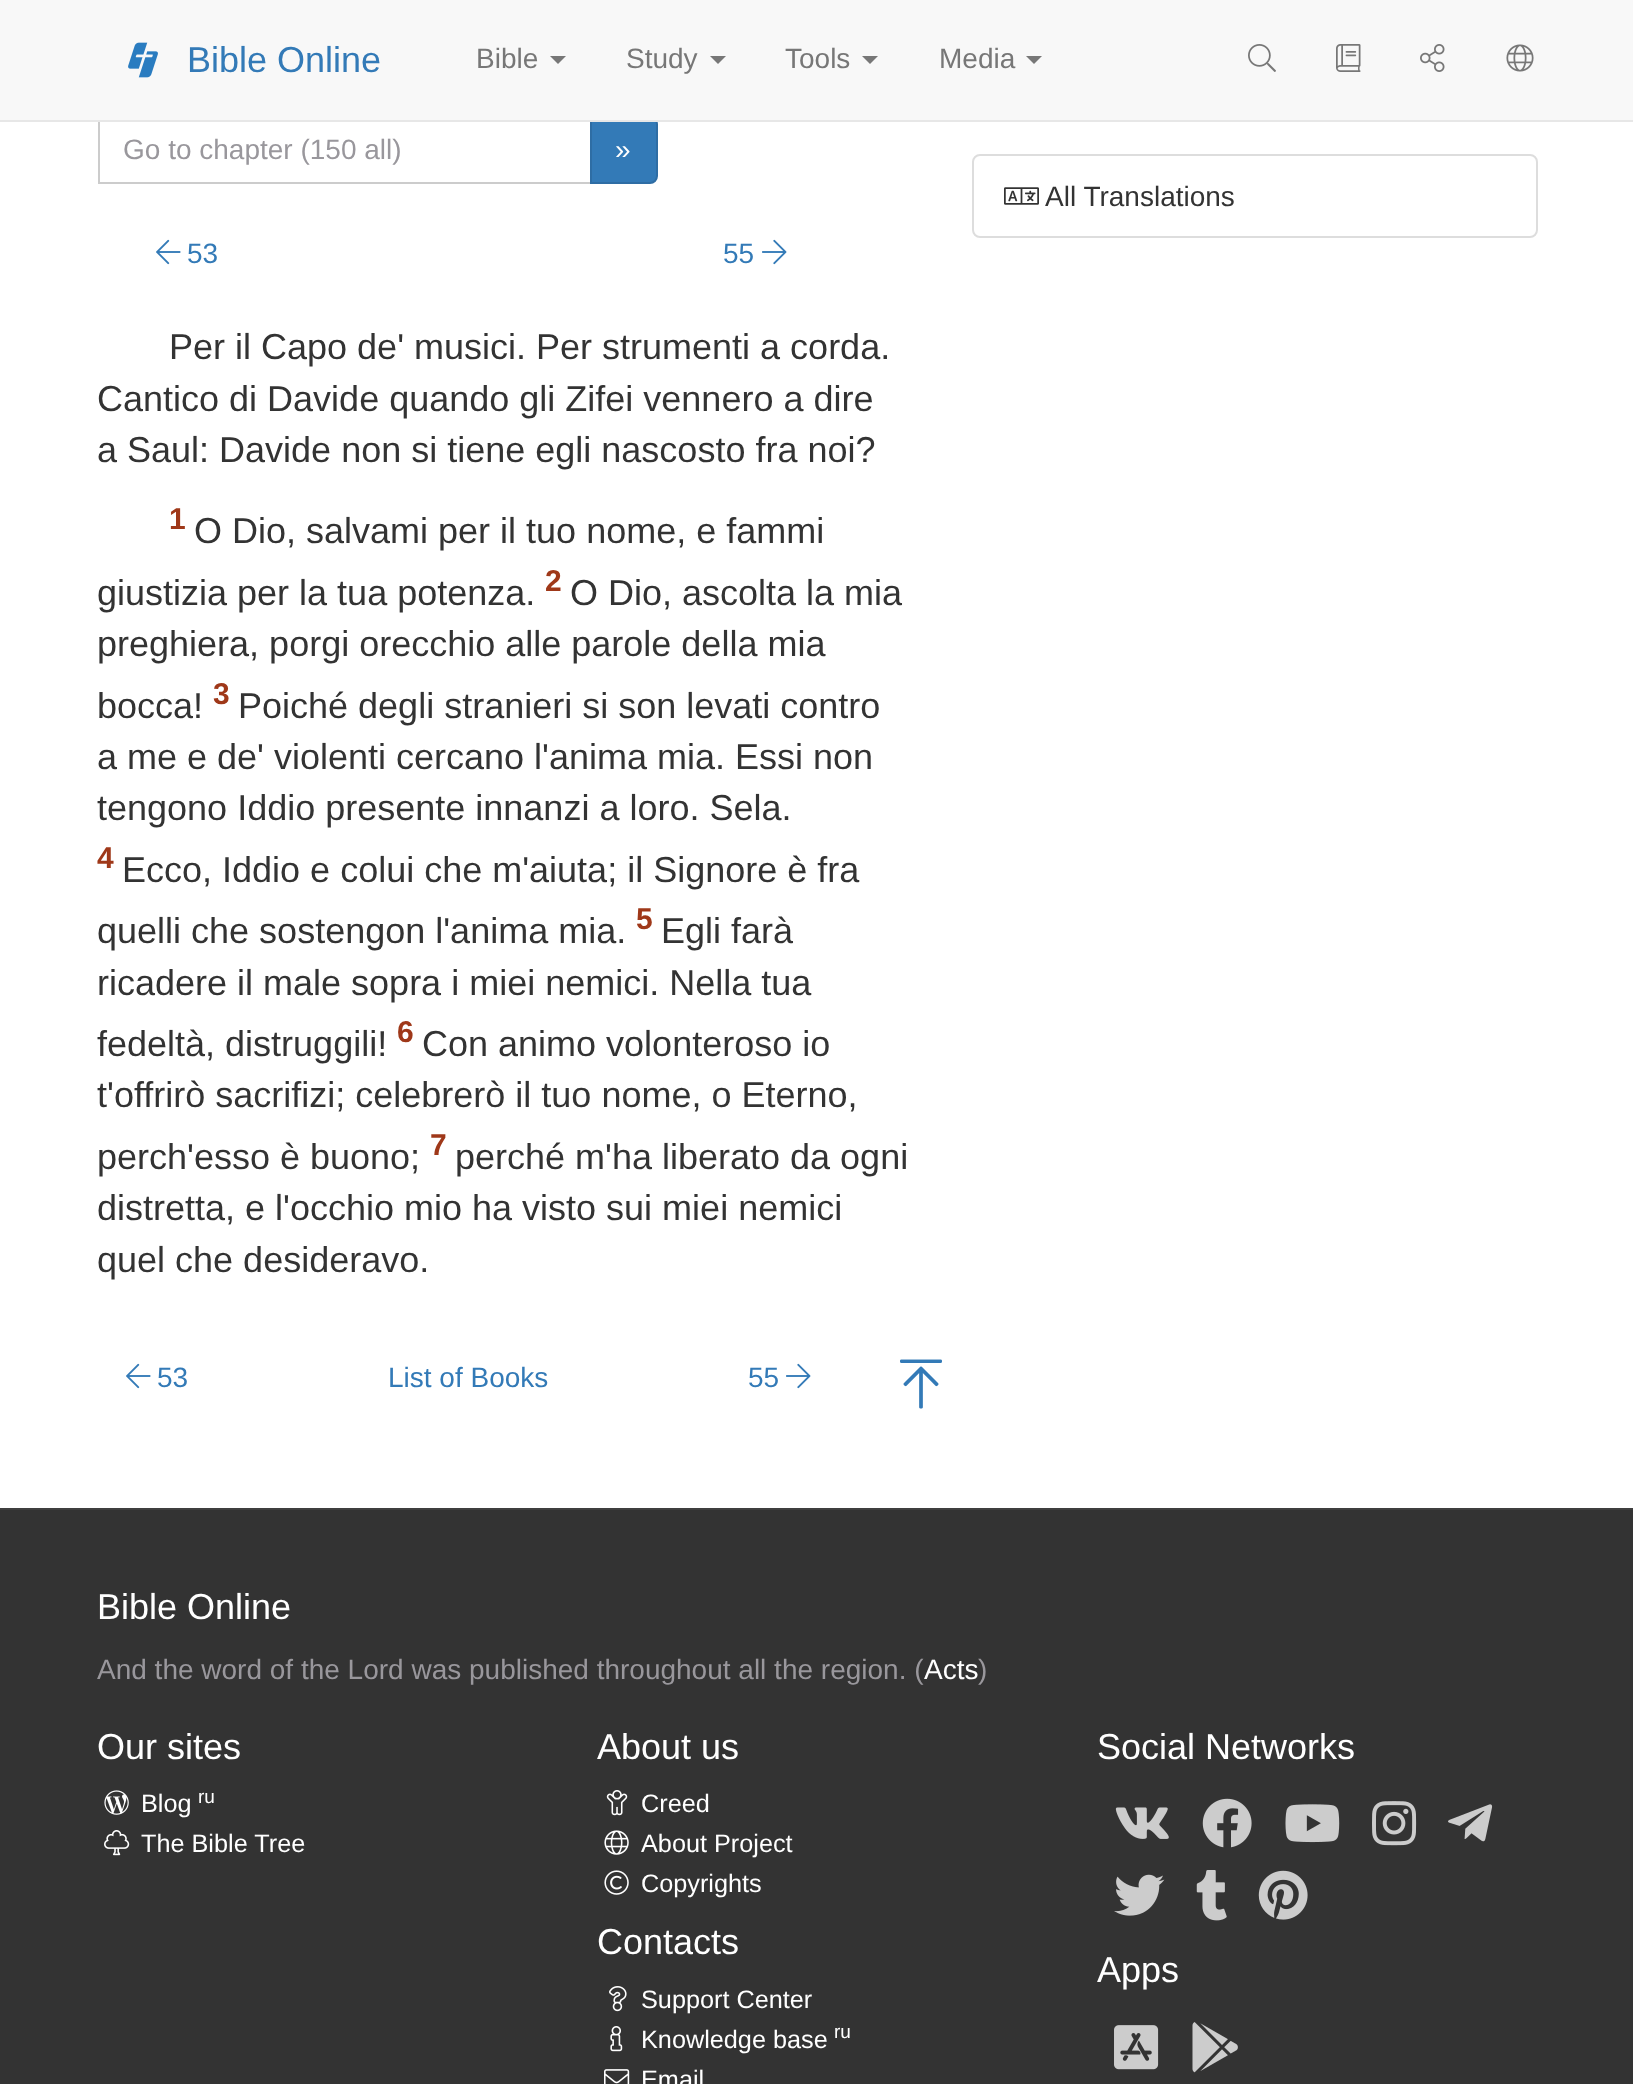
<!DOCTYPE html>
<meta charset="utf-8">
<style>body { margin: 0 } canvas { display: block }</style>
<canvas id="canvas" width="1633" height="2084"></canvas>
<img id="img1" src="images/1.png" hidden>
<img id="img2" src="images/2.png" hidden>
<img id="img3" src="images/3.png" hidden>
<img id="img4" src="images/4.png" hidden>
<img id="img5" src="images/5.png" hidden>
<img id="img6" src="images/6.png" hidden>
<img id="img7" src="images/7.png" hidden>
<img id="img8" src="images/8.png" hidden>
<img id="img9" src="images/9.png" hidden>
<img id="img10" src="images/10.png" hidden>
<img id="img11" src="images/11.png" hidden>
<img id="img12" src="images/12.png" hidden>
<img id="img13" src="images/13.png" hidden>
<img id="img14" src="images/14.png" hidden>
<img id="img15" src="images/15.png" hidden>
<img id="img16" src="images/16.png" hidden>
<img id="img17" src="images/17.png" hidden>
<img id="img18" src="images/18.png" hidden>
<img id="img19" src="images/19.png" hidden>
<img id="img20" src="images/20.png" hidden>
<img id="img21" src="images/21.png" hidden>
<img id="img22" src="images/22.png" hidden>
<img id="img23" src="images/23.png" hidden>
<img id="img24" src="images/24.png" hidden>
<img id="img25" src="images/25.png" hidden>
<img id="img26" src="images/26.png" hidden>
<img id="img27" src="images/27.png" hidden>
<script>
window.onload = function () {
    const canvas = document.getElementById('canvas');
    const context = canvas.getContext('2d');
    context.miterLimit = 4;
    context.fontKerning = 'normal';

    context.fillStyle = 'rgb(255, 255, 255)';
    context.fillRect(0, 0, 1633, 2084);
    context.strokeStyle = 'rgb(204, 204, 204)';
    context.lineWidth = 2;
    context.strokeRect(99, 117, 492, 66);
    context.fillStyle = 'rgb(51, 122, 183)';
    context.beginPath();
    context.roundRect(591, 117, 66, 66, [0, 7, 7, 0]);
    context.fill();
    context.strokeStyle = 'rgb(46, 109, 164)';
    context.stroke();
    context.fillStyle = 'rgb(248, 248, 248)';
    context.fillRect(0, 0, 1633, 120);
    context.fillStyle = 'rgb(231, 231, 231)';
    context.fillRect(0, 120, 1633, 2);
    context.drawImage(document.getElementById('img1'), 128, 42, 30, 36);
    context.fillStyle = 'rgb(119, 119, 119)';
    context.beginPath();
    context.moveTo(550, 56);
    context.lineTo(566, 56);
    context.lineTo(558, 64);
    context.closePath();
    context.fill();
    context.beginPath();
    context.moveTo(710, 56);
    context.lineTo(726, 56);
    context.lineTo(718, 64);
    context.closePath();
    context.fill();
    context.beginPath();
    context.moveTo(862, 56);
    context.lineTo(878, 56);
    context.lineTo(870, 64);
    context.closePath();
    context.fill();
    context.beginPath();
    context.moveTo(1026, 56);
    context.lineTo(1042, 56);
    context.lineTo(1034, 64);
    context.closePath();
    context.fill();
    context.drawImage(document.getElementById('img2'), 1248, 44, 28, 28);
    context.drawImage(document.getElementById('img3'), 1336, 44, 25, 28);
    context.drawImage(document.getElementById('img4'), 1420, 44, 25, 28);
    context.drawImage(document.getElementById('img5'), 1506, 44, 28, 28);
    context.drawImage(document.getElementById('img6'), 156, 239, 25, 26);
    context.drawImage(document.getElementById('img7'), 762, 239, 25, 26);
    context.drawImage(document.getElementById('img6'), 126, 1363, 25, 26);
    context.drawImage(document.getElementById('img7'), 786, 1363, 25, 26);
    context.drawImage(document.getElementById('img8'), 900, 1359, 42, 50);
    context.beginPath();
    context.roundRect(973, 155, 564, 82, 7);
    context.strokeStyle = 'rgb(221, 221, 221)';
    context.stroke();
    context.drawImage(document.getElementById('img9'), 1004, 187, 35, 18);
    context.fillStyle = 'rgb(51, 51, 51)';
    context.fillRect(0, 1510, 1633, 574);
    context.fillStyle = 'rgb(63, 63, 63)';
    context.fillRect(0, 1508, 1633, 2);
    context.drawImage(document.getElementById('img10'), 104, 1790, 25, 25);
    context.drawImage(document.getElementById('img11'), 104, 1830, 26, 26);
    context.drawImage(document.getElementById('img12'), 606, 1790, 22, 26);
    context.drawImage(document.getElementById('img13'), 604, 1830, 25, 25);
    context.drawImage(document.getElementById('img14'), 604, 1870, 25, 25);
    context.drawImage(document.getElementById('img15'), 609, 1986, 18, 26);
    context.drawImage(document.getElementById('img16'), 610, 2026, 13, 26);
    context.drawImage(document.getElementById('img17'), 604, 2069, 26, 15);
    context.drawImage(document.getElementById('img18'), 1115, 1807, 54, 32);
    context.drawImage(document.getElementById('img19'), 1202, 1798, 50, 50);
    context.drawImage(document.getElementById('img20'), 1285, 1804, 55, 39);
    context.drawImage(document.getElementById('img21'), 1372, 1801, 45, 45);
    context.drawImage(document.getElementById('img22'), 1448, 1804, 45, 38);
    context.drawImage(document.getElementById('img23'), 1114, 1874, 51, 42);
    context.drawImage(document.getElementById('img24'), 1196, 1870, 31, 51);
    context.drawImage(document.getElementById('img25'), 1258, 1870, 50, 50);
    context.drawImage(document.getElementById('img26'), 1114, 2025, 45, 45);
    context.drawImage(document.getElementById('img27'), 1192, 2022, 46, 51);
    context.font = '36px Liberation Sans';
    context.fillStyle = 'rgb(51, 122, 183)';
    context.fillText('Bible Online', 187, 72);
    context.font = '28px Liberation Sans';
    context.fillStyle = 'rgb(119, 119, 119)';
    context.fillText('Bible', 476, 68);
    context.fillText('Study', 626, 68);
    context.fillText('Tools', 785, 68);
    context.fillText('Media', 939, 68);
    context.fillStyle = 'rgb(153, 151, 156)';
    context.fillText('Go to chapter (150 all)', 123, 159);
    context.fillStyle = 'rgb(255, 255, 255)';
    context.fillText('»', 615, 159);
    context.fillStyle = 'rgb(51, 122, 183)';
    context.fillText('53', 187, 263);
    context.fillText('55', 723, 263);
    context.font = '36px Liberation Sans';
    context.fillStyle = 'rgb(51, 51, 51)';
    context.fillText('Per il Capo de\' musici. Per strumenti a corda.', 169, 359);
    context.fillText('Cantico di Davide quando gli Zifei vennero a dire', 97, 411);
    context.fillText('a Saul: Davide non si tiene egli nascosto fra noi?', 97, 462);
    context.font = 'bold 30px Liberation Sans';
    context.fillStyle = 'rgb(159, 56, 25)';
    context.fillText('1', 169, 529);
    context.font = '36px Liberation Sans';
    context.fillStyle = 'rgb(51, 51, 51)';
    context.fillText('O Dio, salvami per il tuo nome, e fammi', 194, 543);
    context.fillText('giustizia per la tua potenza.', 97, 605);
    context.font = 'bold 30px Liberation Sans';
    context.fillStyle = 'rgb(159, 56, 25)';
    context.fillText('2', 545, 591);
    context.font = '36px Liberation Sans';
    context.fillStyle = 'rgb(51, 51, 51)';
    context.fillText('O Dio, ascolta la mia', 570, 605);
    context.fillText('preghiera, porgi orecchio alle parole della mia', 97, 656);
    context.fillText('bocca!', 97, 718);
    context.font = 'bold 30px Liberation Sans';
    context.fillStyle = 'rgb(159, 56, 25)';
    context.fillText('3', 213, 704);
    context.font = '36px Liberation Sans';
    context.fillStyle = 'rgb(51, 51, 51)';
    context.fillText('Poiché degli stranieri si son levati contro', 238, 718);
    context.fillText('a me e de\' violenti cercano l\'anima mia. Essi non', 97, 769);
    context.fillText('tengono Iddio presente innanzi a loro. Sela.', 97, 820);
    context.font = 'bold 30px Liberation Sans';
    context.fillStyle = 'rgb(159, 56, 25)';
    context.fillText('4', 97, 868);
    context.font = '36px Liberation Sans';
    context.fillStyle = 'rgb(51, 51, 51)';
    context.fillText('Ecco, Iddio e colui che m\'aiuta; il Signore è fra', 122, 882);
    context.fillText('quelli che sostengon l\'anima mia.', 97, 943);
    context.font = 'bold 30px Liberation Sans';
    context.fillStyle = 'rgb(159, 56, 25)';
    context.fillText('5', 636, 929);
    context.font = '36px Liberation Sans';
    context.fillStyle = 'rgb(51, 51, 51)';
    context.fillText('Egli farà', 661, 943);
    context.fillText('ricadere il male sopra i miei nemici. Nella tua', 97, 995);
    context.fillText('fedeltà, distruggili!', 97, 1056);
    context.font = 'bold 30px Liberation Sans';
    context.fillStyle = 'rgb(159, 56, 25)';
    context.fillText('6', 397, 1042);
    context.font = '36px Liberation Sans';
    context.fillStyle = 'rgb(51, 51, 51)';
    context.fillText('Con animo volonteroso io', 422, 1056);
    context.fillText('t\'offrirò sacrifizi; celebrerò il tuo nome, o Eterno,', 97, 1107);
    context.fillText('perch\'esso è buono;', 97, 1169);
    context.font = 'bold 30px Liberation Sans';
    context.fillStyle = 'rgb(159, 56, 25)';
    context.fillText('7', 430, 1155);
    context.font = '36px Liberation Sans';
    context.fillStyle = 'rgb(51, 51, 51)';
    context.fillText('perché m\'ha liberato da ogni', 455, 1169);
    context.fillText('distretta, e l\'occhio mio ha visto sui miei nemici', 97, 1220);
    context.fillText('quel che desideravo.', 97, 1272);
    context.font = '28px Liberation Sans';
    context.fillStyle = 'rgb(51, 122, 183)';
    context.fillText('53', 157, 1387);
    context.fillText('List of Books', 388, 1387);
    context.fillText('55', 748, 1387);
    context.fillStyle = 'rgb(51, 51, 51)';
    context.fillText('All Translations', 1045, 206);
    context.font = '36px Liberation Sans';
    context.fillStyle = 'rgb(255, 255, 255)';
    context.fillText('Bible Online', 97, 1619);
    context.font = '28px Liberation Sans';
    context.fillStyle = 'rgb(153, 151, 156)';
    context.fillText('And the word of the Lord was published throughout all the region. (', 97, 1679);
    context.fillStyle = 'rgb(255, 255, 255)';
    context.fillText('Acts', 924, 1679);
    context.fillStyle = 'rgb(153, 151, 156)';
    context.fillText(')', 978, 1679);
    context.font = '36px Liberation Sans';
    context.fillStyle = 'rgb(255, 255, 255)';
    context.fillText('Our sites', 97, 1759);
    context.font = '25.25px Liberation Sans';
    context.fillText('Blog', 141, 1812);
    context.font = '19px Liberation Sans';
    context.fillText('ru', 198, 1803);
    context.font = '25.25px Liberation Sans';
    context.fillText('The Bible Tree', 141, 1852);
    context.font = '36px Liberation Sans';
    context.fillText('About us', 597, 1759);
    context.font = '25.25px Liberation Sans';
    context.fillText('Creed', 641, 1812);
    context.fillText('About Project', 641, 1852);
    context.fillText('Copyrights', 641, 1892);
    context.font = '36px Liberation Sans';
    context.fillText('Contacts', 597, 1954);
    context.font = '25.25px Liberation Sans';
    context.fillText('Support Center', 641, 2008);
    context.fillText('Knowledge base', 641, 2048);
    context.font = '19px Liberation Sans';
    context.fillText('ru', 834, 2038);
    context.font = '25.25px Liberation Sans';
    context.fillText('Email', 641, 2088);
    context.font = '36px Liberation Sans';
    context.fillText('Social Networks', 1097, 1759);
    context.fillText('Apps', 1097, 1982);
};
</script>
